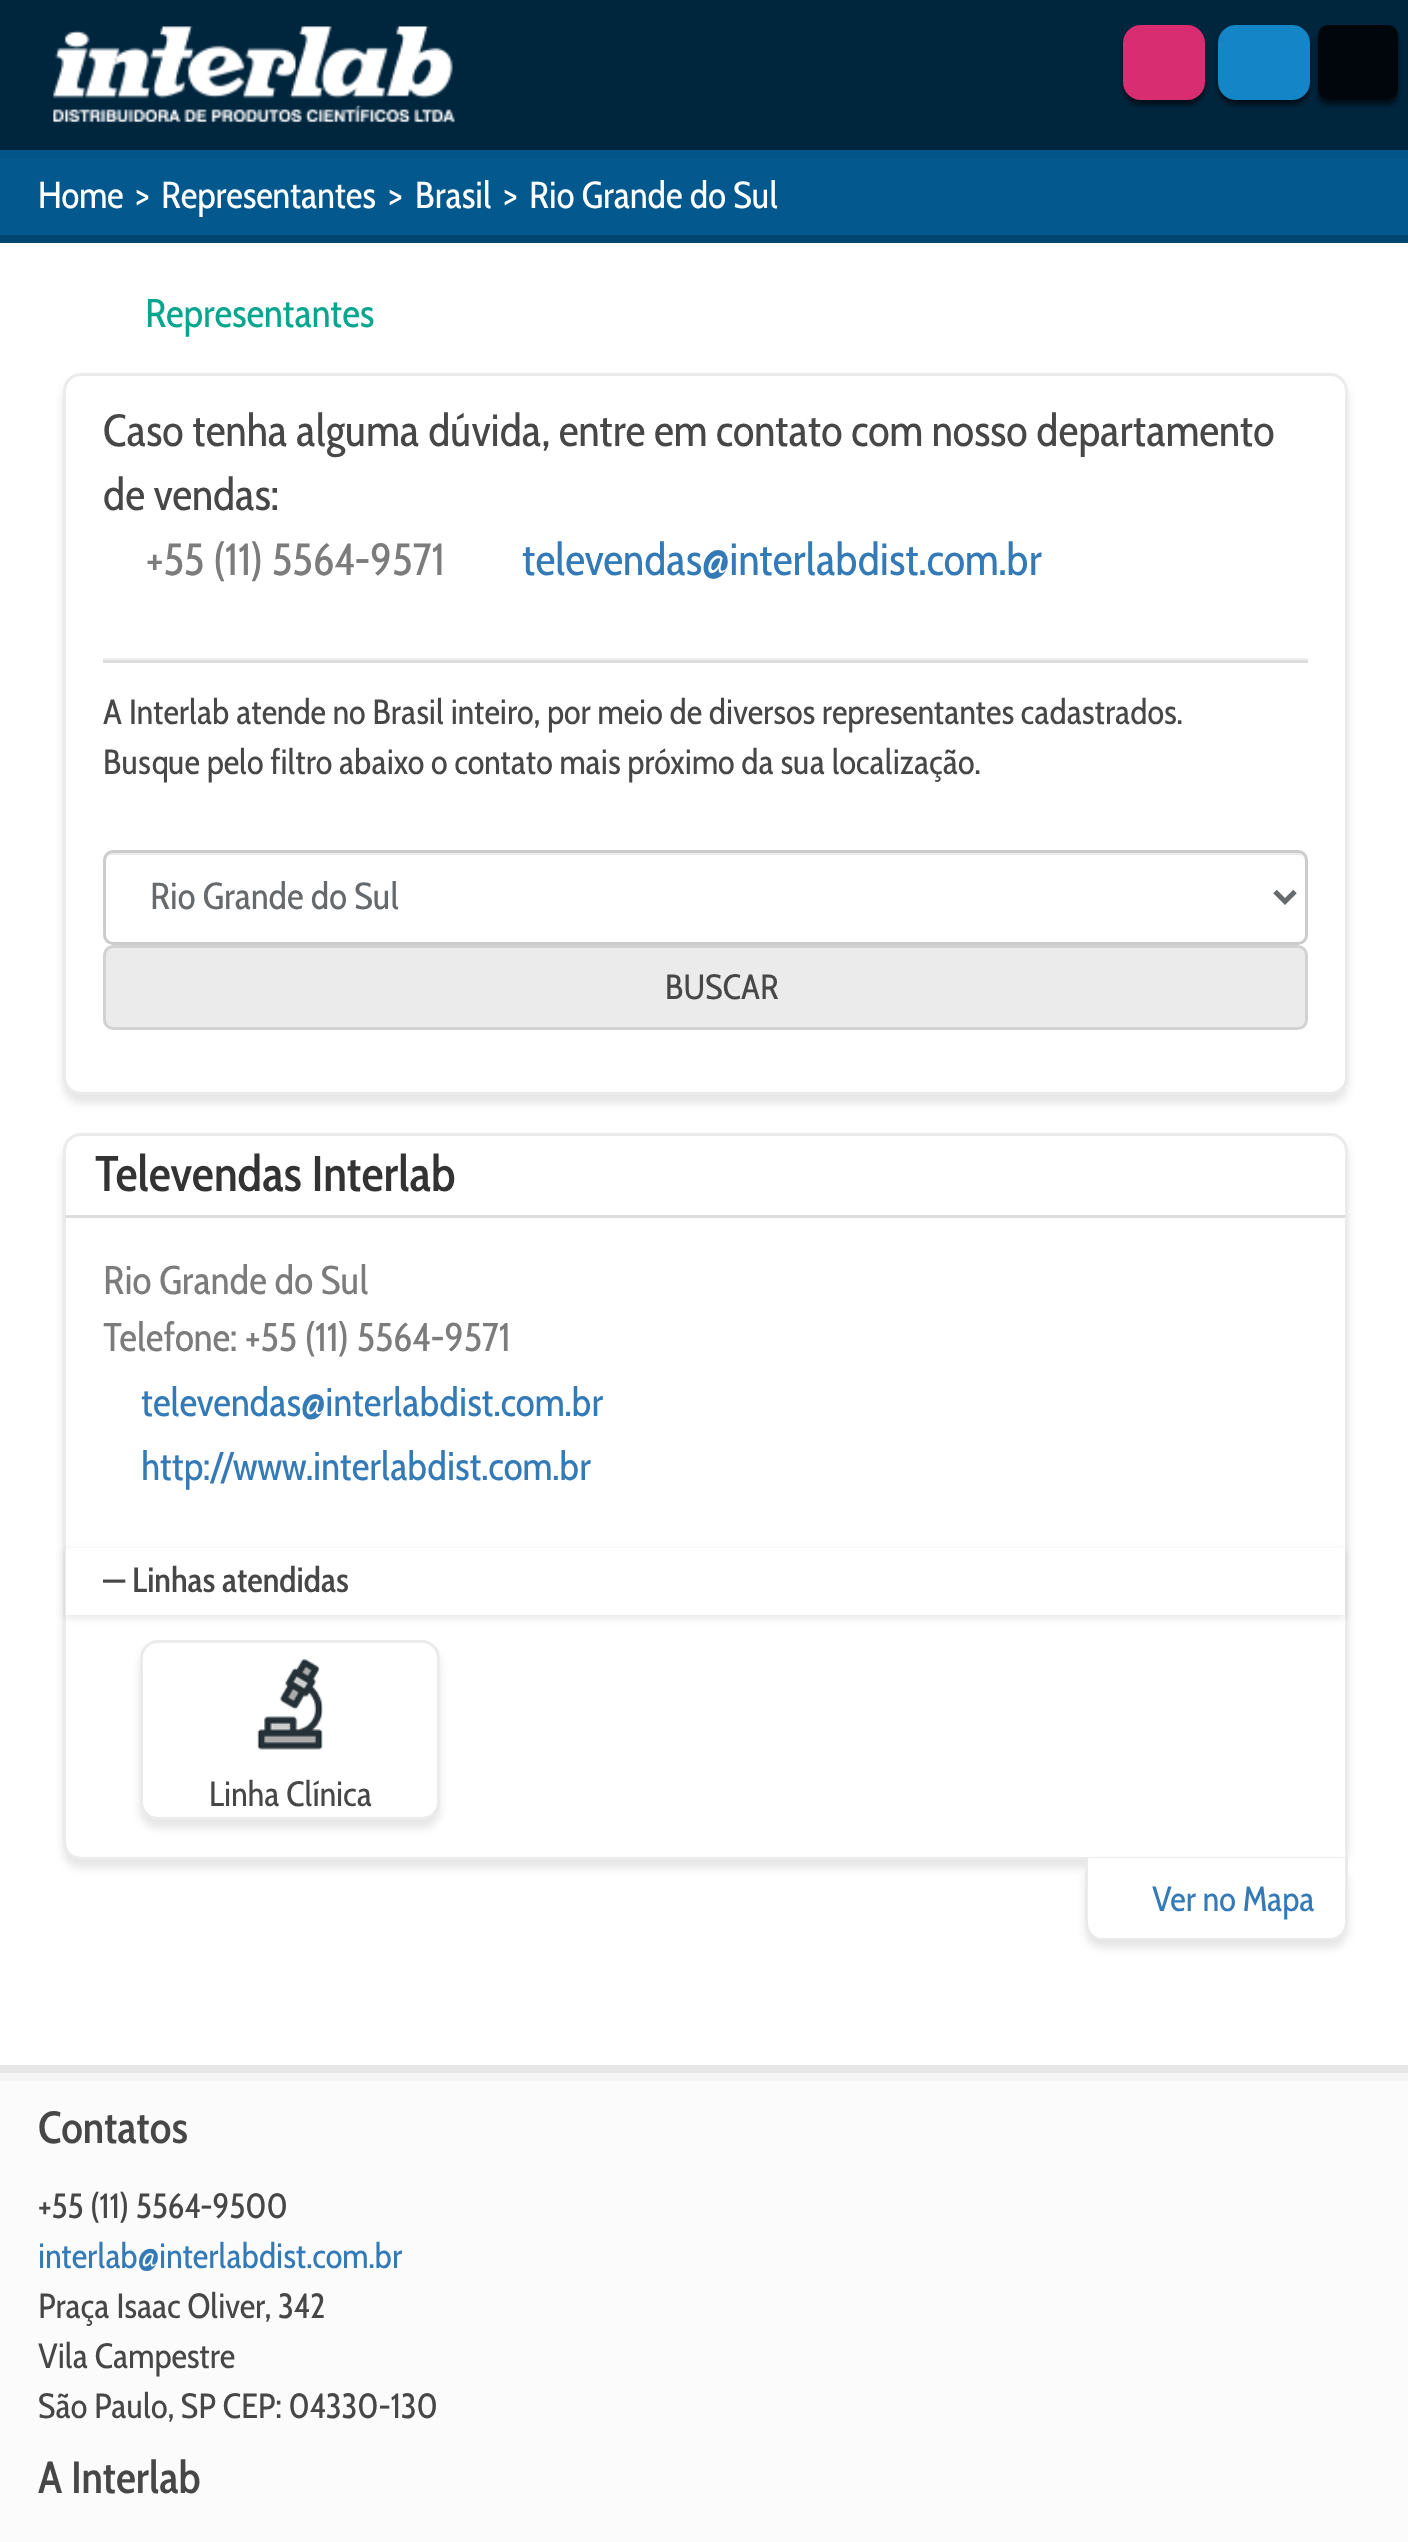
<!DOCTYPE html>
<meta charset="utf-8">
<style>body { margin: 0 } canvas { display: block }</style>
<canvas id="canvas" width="1408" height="2542"></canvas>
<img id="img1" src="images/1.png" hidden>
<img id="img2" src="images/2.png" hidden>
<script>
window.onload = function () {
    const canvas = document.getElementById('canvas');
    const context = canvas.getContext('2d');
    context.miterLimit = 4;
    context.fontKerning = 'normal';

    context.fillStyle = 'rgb(255, 255, 255)';
    context.fillRect(0, 0, 1408, 2542);
    context.fillStyle = 'rgb(0, 38, 62)';
    context.fillRect(0, 0, 1408, 150);
    context.fillStyle = 'rgb(0, 84, 136)';
    context.fillRect(0, 150, 1408, 8);
    context.drawImage(document.getElementById('img1'), 53, 26, 402, 97);
    context.fillStyle = 'rgba(0, 0, 0, 0.6)';
    context.filter = 'blur(2.5px)';
    context.beginPath();
    context.roundRect(1123, 30, 82, 75, 18);
    context.fill();
    context.filter = 'none';
    context.fillStyle = 'rgb(216, 45, 112)';
    context.beginPath();
    context.roundRect(1124.5, 26.5, 79, 72, 16.5);
    context.fill();
    context.strokeStyle = 'rgb(216, 45, 112)';
    context.lineWidth = 3;
    context.stroke();
    context.save();
    context.beginPath();
    context.moveTo(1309, 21);
    context.lineTo(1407, 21);
    context.lineTo(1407, 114);
    context.lineTo(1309, 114);
    context.closePath();
    context.moveTo(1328, 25);
    context.lineTo(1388, 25);
    context.bezierCurveTo(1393.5, 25, 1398, 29.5, 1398, 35);
    context.lineTo(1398, 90);
    context.bezierCurveTo(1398, 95.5, 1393.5, 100, 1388, 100);
    context.lineTo(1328, 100);
    context.bezierCurveTo(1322.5, 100, 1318, 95.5, 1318, 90);
    context.lineTo(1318, 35);
    context.bezierCurveTo(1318, 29.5, 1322.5, 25, 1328, 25);
    context.closePath();
    context.clip('evenodd');
    context.fillStyle = 'rgba(0, 0, 0, 0.6)';
    context.filter = 'blur(2.5px)';
    context.beginPath();
    context.roundRect(1318, 30, 80, 75, 10);
    context.fill();
    context.filter = 'none';
    context.restore();
    context.fillStyle = 'rgba(0, 0, 0, 0.8)';
    context.beginPath();
    context.roundRect(1318, 25, 80, 75, 10);
    context.fill();
    context.fillStyle = 'rgba(0, 0, 0, 0.6)';
    context.filter = 'blur(2.5px)';
    context.beginPath();
    context.roundRect(1218, 30, 92, 75, 18);
    context.fill();
    context.filter = 'none';
    context.fillStyle = 'rgb(20, 134, 199)';
    context.beginPath();
    context.roundRect(1219.5, 26.5, 89, 72, 16.5);
    context.fill();
    context.strokeStyle = 'rgb(20, 134, 199)';
    context.stroke();
    context.fillStyle = 'rgb(3, 89, 142)';
    context.fillRect(0, 158, 1408, 77);
    context.fillStyle = 'rgb(2, 71, 114)';
    context.fillRect(0, 235, 1408, 8);
    context.save();
    context.beginPath();
    context.moveTo(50, 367);
    context.lineTo(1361, 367);
    context.lineTo(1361, 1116);
    context.lineTo(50, 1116);
    context.closePath();
    context.moveTo(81, 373);
    context.lineTo(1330, 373);
    context.bezierCurveTo(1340, 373, 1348, 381, 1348, 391);
    context.lineTo(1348, 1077);
    context.bezierCurveTo(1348, 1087, 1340, 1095, 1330, 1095);
    context.lineTo(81, 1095);
    context.bezierCurveTo(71, 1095, 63, 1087, 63, 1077);
    context.lineTo(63, 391);
    context.bezierCurveTo(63, 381, 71, 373, 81, 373);
    context.closePath();
    context.clip('evenodd');
    context.fillStyle = 'rgba(0, 0, 0, 0.1)';
    context.filter = 'blur(4px)';
    context.beginPath();
    context.roundRect(63, 380, 1285, 723, 18);
    context.fill();
    context.filter = 'none';
    context.restore();
    context.beginPath();
    context.roundRect(64.5, 374.5, 1282, 719, 16.5);
    context.strokeStyle = 'rgba(0, 0, 0, 0.08)';
    context.stroke();
    context.fillStyle = 'rgb(238, 238, 238)';
    context.fillRect(103, 658, 1205, 2);
    context.fillStyle = 'rgb(221, 221, 221)';
    context.fillRect(103, 660, 1205, 3);
    context.fillStyle = 'rgb(236, 236, 236)';
    context.beginPath();
    context.moveTo(112, 855);
    context.lineTo(1298, 855);
    context.bezierCurveTo(1302, 855, 1305, 858, 1305, 862);
    context.lineTo(1305, 861);
    context.bezierCurveTo(1305, 857, 1301, 853, 1297, 853);
    context.lineTo(113, 853);
    context.bezierCurveTo(109, 853, 105, 857, 105, 861);
    context.lineTo(105, 862);
    context.bezierCurveTo(105, 858, 108, 855, 112, 855);
    context.closePath();
    context.fill();
    context.beginPath();
    context.roundRect(104.5, 851.5, 1202, 92, 8.5);
    context.strokeStyle = 'rgb(204, 204, 204)';
    context.stroke();
    context.beginPath();
    context.moveTo(1275, 891.5);
    context.lineTo(1285, 901.5);
    context.lineTo(1295, 891.5);
    context.strokeStyle = 'rgb(103, 106, 109)';
    context.lineWidth = 5;
    context.stroke();
    context.fillStyle = 'rgb(236, 235, 235)';
    context.beginPath();
    context.roundRect(104.5, 946.5, 1202, 82, 8.5);
    context.fill();
    context.strokeStyle = 'rgb(210, 210, 210)';
    context.lineWidth = 3;
    context.stroke();
    context.fillStyle = 'rgba(0, 0, 0, 0.1)';
    context.filter = 'blur(4px)';
    context.beginPath();
    context.roundRect(63, 1140, 1285, 728, 18);
    context.fill();
    context.filter = 'none';
    context.fillStyle = 'rgb(255, 255, 255)';
    context.beginPath();
    context.roundRect(64.5, 1134.5, 1282, 724, [16.5, 16.5, 0, 16.5]);
    context.fill();
    context.strokeStyle = 'rgb(235, 235, 235)';
    context.stroke();
    context.fillStyle = 'rgb(221, 221, 221)';
    context.fillRect(65, 1215, 1280, 3);
    context.save();
    context.beginPath();
    context.moveTo(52, 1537);
    context.lineTo(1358, 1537);
    context.lineTo(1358, 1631);
    context.lineTo(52, 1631);
    context.closePath();
    context.moveTo(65, 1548);
    context.lineTo(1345, 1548);
    context.lineTo(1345, 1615);
    context.lineTo(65, 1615);
    context.closePath();
    context.clip('evenodd');
    context.fillStyle = 'rgba(0, 0, 0, 0.1)';
    context.filter = 'blur(4px)';
    context.beginPath();
    context.rect(65, 1550, 1280, 68);
    context.fill();
    context.filter = 'none';
    context.restore();
    context.save();
    context.beginPath();
    context.moveTo(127, 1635);
    context.lineTo(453, 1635);
    context.lineTo(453, 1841);
    context.lineTo(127, 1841);
    context.closePath();
    context.moveTo(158, 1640);
    context.lineTo(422, 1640);
    context.bezierCurveTo(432, 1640, 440, 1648, 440, 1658);
    context.lineTo(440, 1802);
    context.bezierCurveTo(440, 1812, 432, 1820, 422, 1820);
    context.lineTo(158, 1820);
    context.bezierCurveTo(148, 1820, 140, 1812, 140, 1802);
    context.lineTo(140, 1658);
    context.bezierCurveTo(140, 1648, 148, 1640, 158, 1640);
    context.closePath();
    context.clip('evenodd');
    context.fillStyle = 'rgba(0, 0, 0, 0.1)';
    context.filter = 'blur(4px)';
    context.beginPath();
    context.roundRect(140, 1648, 300, 180, 18);
    context.fill();
    context.filter = 'none';
    context.restore();
    context.beginPath();
    context.roundRect(141.5, 1641.5, 297, 177, 16.5);
    context.strokeStyle = 'rgba(0, 0, 0, 0.08)';
    context.stroke();
    context.drawImage(document.getElementById('img2'), 257, 1659, 66, 91);
    context.fillStyle = 'rgba(0, 0, 0, 0.1)';
    context.filter = 'blur(4px)';
    context.beginPath();
    context.roundRect(1085, 1865, 263, 83, 18);
    context.fill();
    context.filter = 'none';
    context.fillStyle = 'rgb(255, 255, 255)';
    context.beginPath();
    context.roundRect(1085, 1858, 263, 82, [0, 0, 18, 18]);
    context.fill();
    context.fillStyle = 'rgba(0, 0, 0, 0.08)';
    context.beginPath();
    context.moveTo(1085, 1858);
    context.lineTo(1348, 1858);
    context.lineTo(1348, 1922);
    context.bezierCurveTo(1348, 1932, 1340, 1940, 1330, 1940);
    context.lineTo(1102, 1940);
    context.bezierCurveTo(1093, 1940, 1085, 1932, 1085, 1922);
    context.closePath();
    context.moveTo(1088, 1858);
    context.lineTo(1345, 1858);
    context.lineTo(1345, 1922);
    context.bezierCurveTo(1345, 1931, 1338, 1938, 1330, 1938);
    context.lineTo(1102, 1938);
    context.bezierCurveTo(1094, 1938, 1088, 1931, 1088, 1922);
    context.closePath();
    context.fill('evenodd');
    context.fillStyle = 'rgb(251, 251, 251)';
    context.fillRect(0, 2081, 1408, 461);
    context.fillStyle = 'rgb(231, 231, 231)';
    context.fillRect(0, 2065, 1408, 8);
    context.fillStyle = 'rgb(245, 245, 245)';
    context.fillRect(0, 2073, 1408, 8);
    context.font = '37.5px Cabin Condensed';
    context.fillStyle = 'rgb(255, 255, 255)';
    context.fillText('Home', 38, 208);
    context.fillText('>', 136, 208);
    context.fillText('Representantes', 161, 208);
    context.fillText('>', 389, 208);
    context.fillText('Brasil', 415, 208);
    context.fillText('>', 504, 208);
    context.fillText('Rio Grande do Sul', 529, 208);
    context.font = '40px Cabin Condensed';
    context.fillStyle = 'rgb(8, 166, 142)';
    context.fillText('Representantes', 145, 327);
    context.font = '45px Cabin Condensed';
    context.fillStyle = 'rgb(71, 71, 71)';
    context.fillText('Caso tenha alguma dúvida, entre em contato com nosso departamento', 103, 446);
    context.fillText('de vendas:', 103, 510);
    context.fillStyle = 'rgb(124, 124, 124)';
    context.fillText('+55 (11) 5564-9571', 146, 575);
    context.fillStyle = 'rgb(51, 122, 183)';
    context.fillText('televendas@interlabdist.com.br', 522, 575);
    context.font = '35px Cabin Condensed';
    context.fillStyle = 'rgb(71, 71, 71)';
    context.fillText('A Interlab atende no Brasil inteiro, por meio de diversos representantes cadastrados.', 103, 724);
    context.fillText('Busque pelo filtro abaixo o contato mais próximo da sua localização.', 103, 774);
    context.font = '37.5px Cabin Condensed';
    context.fillStyle = 'rgb(103, 106, 109)';
    context.fillText('Rio Grande do Sul', 150, 909);
    context.font = '35px Cabin Condensed';
    context.fillStyle = 'rgb(71, 71, 71)';
    context.fillText('BUSCAR', 665, 999);
    context.font = '500 50px Cabin Condensed';
    context.fillStyle = 'rgb(51, 51, 51)';
    context.fillText('Televendas Interlab', 95, 1191);
    context.font = '40px Cabin Condensed';
    context.fillStyle = 'rgb(124, 124, 124)';
    context.fillText('Rio Grande do Sul', 103, 1294);
    context.fillText('Telefone: +55 (11) 5564-9571', 103, 1351);
    context.fillStyle = 'rgb(51, 122, 183)';
    context.fillText('televendas@interlabdist.com.br', 141, 1416);
    context.fillText('http://www.interlabdist.com.br', 141, 1480);
    context.font = '500 35px Cabin Condensed';
    context.fillStyle = 'rgb(71, 71, 71)';
    context.fillText('— Linhas atendidas', 103, 1592);
    context.font = '35px Cabin Condensed';
    context.fillText('Linha Clínica', 209, 1806);
    context.fillStyle = 'rgb(51, 122, 183)';
    context.fillText('Ver no Mapa', 1152, 1911);
    context.font = '500 45px Cabin Condensed';
    context.fillStyle = 'rgb(71, 71, 71)';
    context.fillText('Contatos', 38, 2143);
    context.font = '35px Cabin Condensed';
    context.fillText('+55 (11) 5564-9500', 38, 2218);
    context.fillStyle = 'rgb(51, 122, 183)';
    context.fillText('interlab@interlabdist.com.br', 38, 2268);
    context.fillStyle = 'rgb(71, 71, 71)';
    context.fillText('Praça Isaac Oliver, 342', 38, 2318);
    context.fillText('Vila Campestre', 38, 2368);
    context.fillText('São Paulo, SP CEP: 04330-130', 38, 2418);
    context.font = '500 45px Cabin Condensed';
    context.fillText('A Interlab', 38, 2493);
};
</script>
